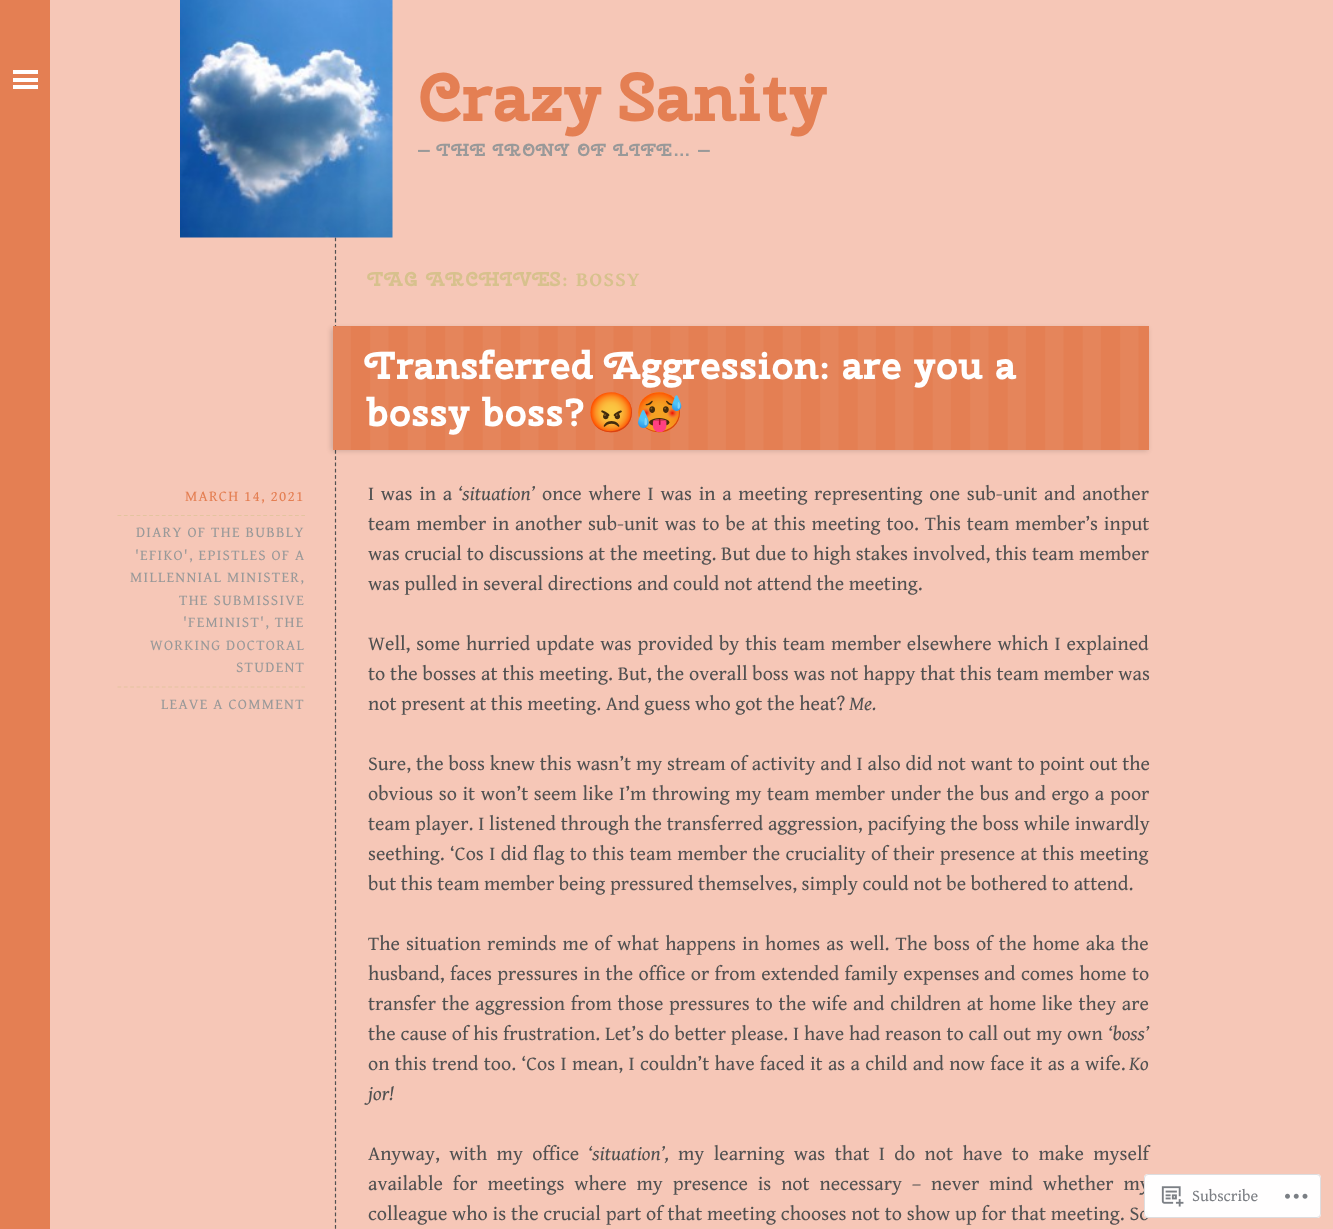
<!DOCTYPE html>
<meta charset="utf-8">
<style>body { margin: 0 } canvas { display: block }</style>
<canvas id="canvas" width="1333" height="1229"></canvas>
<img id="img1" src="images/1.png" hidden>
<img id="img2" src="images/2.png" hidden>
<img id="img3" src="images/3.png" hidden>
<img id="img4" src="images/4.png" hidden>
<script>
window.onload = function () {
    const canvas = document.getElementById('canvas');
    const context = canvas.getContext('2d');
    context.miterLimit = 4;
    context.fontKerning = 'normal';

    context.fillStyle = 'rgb(246, 199, 183)';
    context.fillRect(0, 0, 1333, 1229);
    context.fillStyle = 'rgb(228, 127, 83)';
    context.fillRect(0, 0, 50, 1229);
    context.fillStyle = 'rgb(255, 255, 255)';
    context.fillRect(13, 78, 25, 4);
    context.fillRect(13, 70, 25, 4);
    context.fillRect(13, 85, 25, 4);
    context.beginPath();
    context.moveTo(335.5, 0);
    context.lineTo(335.5, 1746);
    context.strokeStyle = 'rgb(81, 81, 81)';
    context.lineWidth = 1.2;
    context.setLineDash([3.75, 2.5]);
    context.stroke();
    context.drawImage(document.getElementById('img1'), 180, 0, 213, 238);
    context.fillStyle = 'rgba(0, 0, 0, 0.15)';
    context.filter = 'blur(2.5px)';
    context.beginPath();
    context.rect(331, 328, 817, 123);
    context.fill();
    context.filter = 'none';
    context.fillStyle = 'rgb(228, 127, 83)';
    context.fillRect(333, 326, 816, 124);
    context.drawImage(document.getElementById('img2'), 333, 326, 806, 124);
    context.beginPath();
    context.moveTo(117.5, 515.5);
    context.lineTo(305, 515.5);
    context.strokeStyle = 'rgb(228, 196, 159)';
    context.setLineDash([3.75, 2.59]);
    context.stroke();
    context.beginPath();
    context.moveTo(117.5, 687);
    context.lineTo(305, 687);
    context.stroke();
    context.font = 'bold 68.25px Cherry Swash';
    context.fillText('Crazy Sanity', 418, 121);
    context.letterSpacing = '1.25px';
    context.font = 'bold 17.5px Cherry Swash';
    context.fillStyle = 'rgb(153, 153, 153)';
    context.fillText('—', 418, 156);
    context.fillText('THE IRONY OF LIFE', 437, 156);
    context.fillText('—', 698, 156);
    context.font = 'bold 17.5px Liberation Sans';
    context.fillText('…', 673, 156);
    context.font = 'bold 20px Cherry Swash';
    context.fillStyle = 'rgb(215, 193, 141)';
    context.fillText('TAG ARCHIVES:', 368, 286);
    context.font = 'bold 20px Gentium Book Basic';
    context.fillText('BOSSY', 576, 286);
    context.letterSpacing = '0px';
    context.font = 'bold 39px Cherry Swash';
    context.fillStyle = 'rgb(255, 255, 255)';
    context.fillText('Transferred Aggression: are you a', 366, 379);
    context.fillText('bossy boss?', 366, 426);
    context.font = 'bold 39px Noto Color Emoji';
    context.fillText('😡🥵', 587, 426);
    context.letterSpacing = '1.25px';
    context.font = '15px Gentium Book Basic';
    context.fillStyle = 'rgb(228, 127, 83)';
    context.fillText('MARCH 14, 2021', 185, 501);
    context.fillStyle = 'rgb(153, 153, 153)';
    context.fillText('DIARY OF THE BUBBLY', 136, 537);
    context.fillText('\'EFIKO\', EPISTLES OF A', 135, 560);
    context.fillText('MILLENNIAL MINISTER,', 130, 582);
    context.fillText('THE SUBMISSIVE', 179, 605);
    context.fillText('\'FEMINIST\', THE', 183, 627);
    context.fillText('WORKING DOCTORAL', 150, 650);
    context.fillText('STUDENT', 236, 672);
    context.fillText('LEAVE A COMMENT', 161, 709);
    context.letterSpacing = '0px';
    context.wordSpacing = '2.1px';
    context.font = '20px Gentium Book Basic';
    context.fillStyle = 'rgb(81, 81, 81)';
    context.fillText('I was in a', 368, 500);
    context.wordSpacing = '0px';
    context.font = 'italic 20px Gentium Book Basic';
    context.fillText('‘situation’', 458, 500);
    context.wordSpacing = '2.1px';
    context.font = '20px Gentium Book Basic';
    context.fillText('once where I was in a meeting representing one sub-unit and another', 542, 500);
    context.wordSpacing = '1.4px';
    context.fillText('team member in another sub-unit was to be at this meeting too. This team member’s input', 368, 530);
    context.wordSpacing = '0.25px';
    context.fillText('was crucial to discussions at the meeting. But due to high stakes involved, this team member', 368, 560);
    context.wordSpacing = '0px';
    context.fillText('was pulled in several directions and could not attend the meeting.', 368, 590);
    context.wordSpacing = '1.25px';
    context.fillText('Well, some hurried update was provided by this team member elsewhere which I explained', 368, 650);
    context.wordSpacing = '0.2px';
    context.fillText('to the bosses at this meeting. But, the overall boss was not happy that this team member was', 368, 680);
    context.wordSpacing = '0px';
    context.fillText('not present at this meeting. And guess who got the heat?', 368, 710);
    context.font = 'italic 20px Gentium Book Basic';
    context.fillText('Me.', 849, 710);
    context.wordSpacing = '0.25px';
    context.font = '20px Gentium Book Basic';
    context.fillText('Sure, the boss knew this wasn’t my stream of activity and I also did not want to point out the', 368, 770);
    context.wordSpacing = '1px';
    context.fillText('obvious so it won’t seem like I’m throwing my team member under the bus and ergo a poor', 368, 800);
    context.wordSpacing = '0.2px';
    context.fillText('team player. I listened through the transferred aggression, pacifying the boss while inwardly', 368, 830);
    context.wordSpacing = '0.75px';
    context.fillText('seething. ‘Cos I did flag to this team member the cruciality of their presence at this meeting', 368, 860);
    context.wordSpacing = '0px';
    context.fillText('but this team member being pressured themselves, simply could not be bothered to attend.', 368, 890);
    context.wordSpacing = '1.5px';
    context.fillText('The situation reminds me of what happens in homes as well. The boss of the home aka the', 368, 950);
    context.wordSpacing = '0.75px';
    context.fillText('husband, faces pressures in the office or from extended family expenses', 368, 980);
    context.wordSpacing = '1px';
    context.fillText('and comes home to', 984, 980);
    context.wordSpacing = '1.1px';
    context.fillText('transfer the aggression from those pressures to the wife and children at home like they are', 368, 1010);
    context.wordSpacing = '0.25px';
    context.fillText('the cause of his frustration. Let’s do better please. I have had reason to call out my own', 368, 1040);
    context.wordSpacing = '0px';
    context.font = 'italic 20px Gentium Book Basic';
    context.fillText('‘boss’', 1108, 1040);
    context.wordSpacing = '0.7px';
    context.font = '20px Gentium Book Basic';
    context.fillText('on this trend too. ‘Cos I mean, I couldn’t have faced it as a child and now face it as a wife.', 368, 1070);
    context.wordSpacing = '0px';
    context.font = 'italic 20px Gentium Book Basic';
    context.fillText('Ko', 1129, 1070);
    context.fillText('jor!', 368, 1100);
    context.wordSpacing = '4.75px';
    context.font = '20px Gentium Book Basic';
    context.fillText('Anyway, with my office', 368, 1160);
    context.wordSpacing = '0px';
    context.font = 'italic 20px Gentium Book Basic';
    context.fillText('‘situation’,', 588, 1160);
    context.wordSpacing = '4.75px';
    context.font = '20px Gentium Book Basic';
    context.fillText('my learning was that I do not have to make myself', 678, 1160);
    context.wordSpacing = '5.25px';
    context.fillText('available for meetings where my presence is not necessary – never mind whether my', 368, 1190);
    context.wordSpacing = '0.2px';
    context.fillText('colleague who is the crucial part of that meeting chooses not to show up for that meeting. So', 368, 1220);
    context.fillStyle = 'rgba(255, 255, 255, 0.98)';
    context.beginPath();
    context.roundRect(1144, 1174, 177, 44, 4);
    context.fill();
    context.beginPath();
    context.roundRect(1144.5, 1174.5, 176, 43, 3.5);
    context.strokeStyle = 'rgba(220, 220, 222, 0.98)';
    context.lineWidth = 1;
    context.setLineDash([]);
    context.stroke();
    context.drawImage(document.getElementById('img3'), 1161, 1186, 23, 21);
    context.wordSpacing = '0px';
    context.font = '16.25px Gentium Book Basic';
    context.fillStyle = 'rgb(123, 126, 131)';
    context.fillText('Subscribe', 1192, 1201);
    context.drawImage(document.getElementById('img4'), 1285, 1193, 23, 6);
};
</script>
